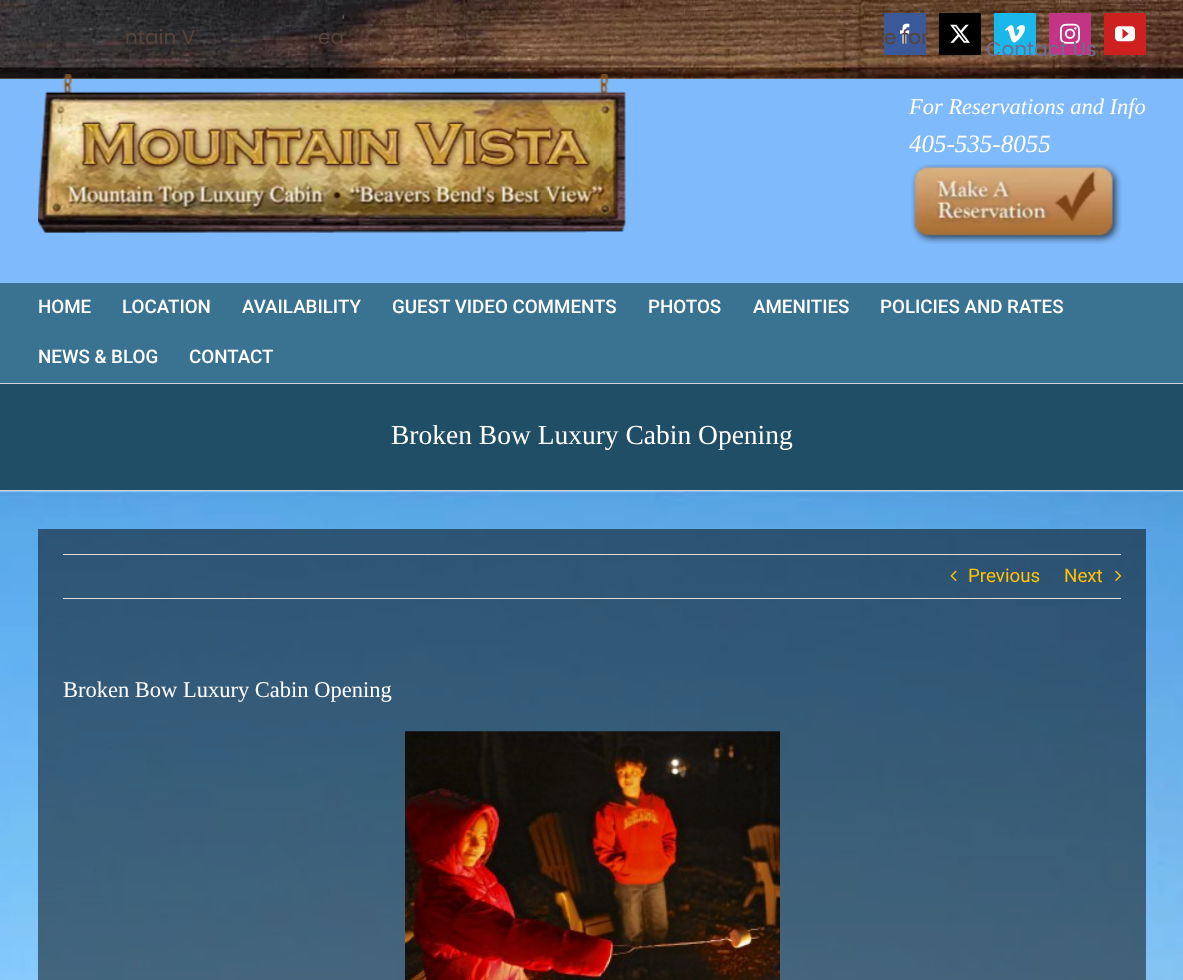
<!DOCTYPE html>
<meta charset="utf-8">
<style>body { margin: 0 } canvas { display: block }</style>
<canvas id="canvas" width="1183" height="980"></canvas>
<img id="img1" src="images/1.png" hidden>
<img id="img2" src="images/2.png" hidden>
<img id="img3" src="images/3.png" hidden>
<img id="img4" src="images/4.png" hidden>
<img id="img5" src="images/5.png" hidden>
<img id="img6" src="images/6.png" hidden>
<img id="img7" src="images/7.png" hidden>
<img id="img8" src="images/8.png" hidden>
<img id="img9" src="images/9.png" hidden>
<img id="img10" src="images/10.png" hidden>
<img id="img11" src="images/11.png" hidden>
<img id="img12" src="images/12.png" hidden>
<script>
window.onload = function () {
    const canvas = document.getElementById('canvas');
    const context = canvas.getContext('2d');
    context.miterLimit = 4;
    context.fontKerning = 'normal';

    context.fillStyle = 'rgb(255, 255, 255)';
    context.fillRect(0, 0, 1183, 980);
    context.drawImage(document.getElementById('img1'), 0, 0, 1183, 79);
    context.fillStyle = 'rgb(59, 89, 152)';
    context.beginPath();
    context.roundRect(884.5, 13.5, 41, 41, 0.5);
    context.fill();
    context.strokeStyle = 'rgb(59, 89, 152)';
    context.stroke();
    context.drawImage(document.getElementById('img2'), 900, 23, 10, 21);
    context.fillStyle = 'rgb(0, 0, 0)';
    context.beginPath();
    context.roundRect(939.5, 13.5, 41, 41, 0.5);
    context.fill();
    context.strokeStyle = 'rgb(0, 0, 0)';
    context.stroke();
    context.drawImage(document.getElementById('img3'), 950, 24, 20, 19);
    context.fillStyle = 'rgb(26, 183, 234)';
    context.beginPath();
    context.roundRect(994.5, 13.5, 41, 41, 0.5);
    context.fill();
    context.strokeStyle = 'rgb(26, 183, 234)';
    context.stroke();
    context.drawImage(document.getElementById('img4'), 1005, 25, 20, 18);
    context.fillStyle = 'rgb(193, 53, 132)';
    context.beginPath();
    context.roundRect(1049.5, 13.5, 41, 41, 0.5);
    context.fill();
    context.strokeStyle = 'rgb(193, 53, 132)';
    context.stroke();
    context.drawImage(document.getElementById('img5'), 1060, 23, 20, 21);
    context.fillStyle = 'rgb(205, 32, 31)';
    context.beginPath();
    context.roundRect(1104.5, 13.5, 41, 41, 0.5);
    context.fill();
    context.strokeStyle = 'rgb(205, 32, 31)';
    context.stroke();
    context.drawImage(document.getElementById('img6'), 1115, 26, 20, 16);
    context.fillStyle = 'rgb(127, 186, 252)';
    context.fillRect(0, 79, 1183, 204);
    context.drawImage(document.getElementById('img7'), 38, 74, 588, 159);
    context.drawImage(document.getElementById('img8'), 911, 164, 211, 80);
    context.fillStyle = 'rgb(58, 115, 146)';
    context.fillRect(0, 283, 1183, 100);
    context.fillStyle = 'rgb(32, 78, 103)';
    context.fillRect(0, 384, 1183, 106);
    context.fillStyle = 'rgb(210, 211, 212)';
    context.fillRect(0, 383, 1183, 1);
    context.fillRect(0, 490, 1183, 1);
    context.drawImage(document.getElementById('img9'), 0, 491, 1183, 489);
    context.fillStyle = 'rgba(0, 0, 0, 0.5)';
    context.fillRect(38, 529, 1108, 451);
    context.fillStyle = 'rgb(224, 222, 222)';
    context.fillRect(63, 554, 1058, 1);
    context.fillRect(63, 598, 1058, 1);
    context.drawImage(document.getElementById('img10'), 950, 570, 7, 12);
    context.drawImage(document.getElementById('img11'), 1115, 570, 7, 11);
    context.drawImage(document.getElementById('img12'), 405, 731, 375, 249);
    context.font = '20px Poppins';
    context.fillStyle = 'rgb(89, 68, 58)';
    context.fillText('ntain V', 125, 44);
    context.fillText('ea', 318, 44);
    context.fillText('e for', 884, 44);
    context.fillStyle = 'rgb(111, 108, 142)';
    context.fillText('Contact Us', 986, 56);
    context.font = 'italic 22.5px Liberation Serif';
    context.fillStyle = 'rgb(255, 255, 255)';
    context.fillText('For Reservations and Info', 909, 114);
    context.font = 'italic 25px Liberation Serif';
    context.fillText('405-535-8055', 909, 152);
    context.font = '500 18.75px Roboto';
    context.fillText('HOME', 38, 313);
    context.fillText('LOCATION', 122, 313);
    context.fillText('AVAILABILITY', 242, 313);
    context.fillText('GUEST VIDEO COMMENTS', 392, 313);
    context.fillText('PHOTOS', 648, 313);
    context.fillText('AMENITIES', 753, 313);
    context.fillText('POLICIES AND RATES', 880, 313);
    context.fillText('NEWS & BLOG', 38, 363);
    context.fillText('CONTACT', 189, 363);
    context.font = '27.5px Liberation Serif';
    context.fillText('Broken Bow Luxury Cabin Opening', 391, 444);
    context.font = '18.75px Roboto';
    context.fillStyle = 'rgb(255, 193, 7)';
    context.fillText('Previous', 968, 582);
    context.fillText('Next', 1064, 582);
    context.font = '22.5px Liberation Serif';
    context.fillStyle = 'rgb(255, 255, 255)';
    context.fillText('Broken Bow Luxury Cabin Opening', 63, 697);
};
</script>
